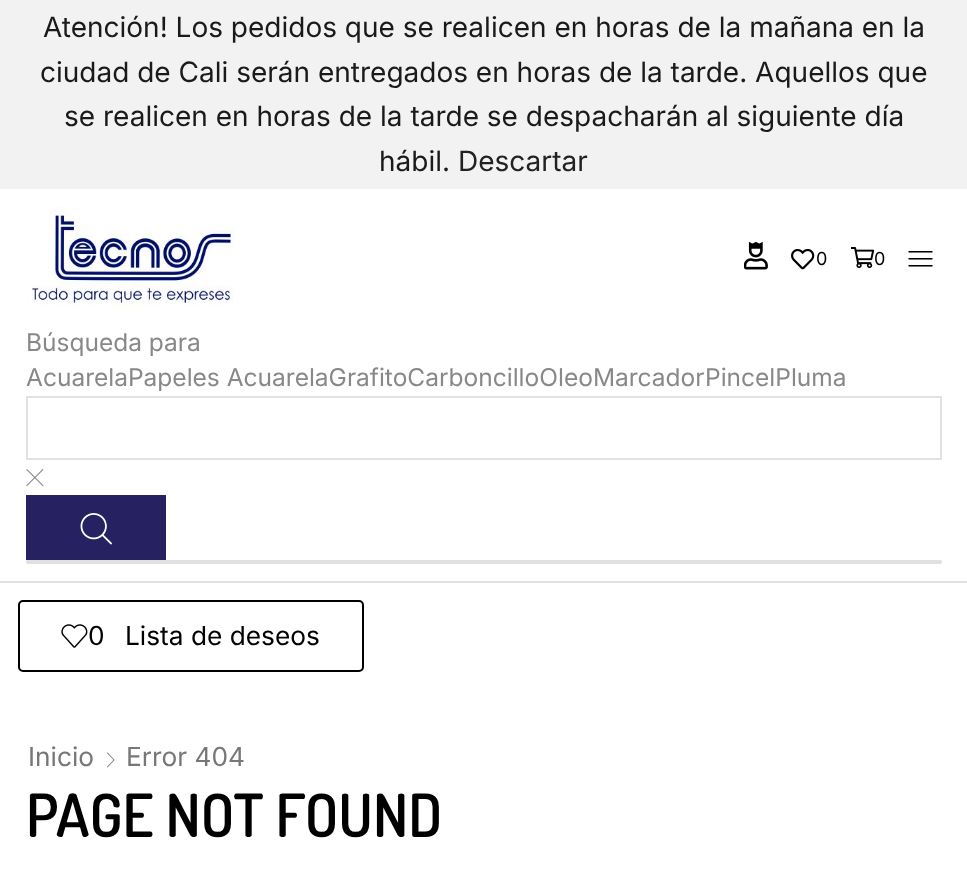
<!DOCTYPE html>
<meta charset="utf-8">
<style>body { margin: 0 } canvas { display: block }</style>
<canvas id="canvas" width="967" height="894"></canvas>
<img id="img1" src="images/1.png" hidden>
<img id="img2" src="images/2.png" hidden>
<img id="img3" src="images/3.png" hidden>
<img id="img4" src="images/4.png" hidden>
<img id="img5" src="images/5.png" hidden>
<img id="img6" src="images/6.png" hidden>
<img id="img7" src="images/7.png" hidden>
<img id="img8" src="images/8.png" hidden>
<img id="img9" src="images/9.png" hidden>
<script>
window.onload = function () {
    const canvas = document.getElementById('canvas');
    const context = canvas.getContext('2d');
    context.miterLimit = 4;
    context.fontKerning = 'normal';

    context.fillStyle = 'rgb(255, 255, 255)';
    context.fillRect(0, 0, 967, 894);
    context.fillStyle = 'rgb(242, 242, 242)';
    context.fillRect(0, 0, 967, 189);
    context.fillStyle = 'rgb(225, 225, 225)';
    context.fillRect(0, 581, 967, 2);
    context.drawImage(document.getElementById('img1'), 26, 206, 210, 103);
    context.drawImage(document.getElementById('img2'), 744, 242, 24, 28);
    context.drawImage(document.getElementById('img3'), 791, 249, 24, 21);
    context.drawImage(document.getElementById('img4'), 851, 247, 24, 21);
    context.drawImage(document.getElementById('img5'), 908, 251, 25, 16);
    context.strokeStyle = 'rgb(225, 225, 225)';
    context.lineWidth = 2;
    context.strokeRect(27, 397, 914, 62);
    context.drawImage(document.getElementById('img6'), 26, 469, 18, 18);
    context.fillStyle = 'rgb(38, 34, 98)';
    context.fillRect(26, 495, 140, 65);
    context.drawImage(document.getElementById('img7'), 80, 513, 32, 32);
    context.fillStyle = 'rgb(225, 225, 225)';
    context.beginPath();
    context.roundRect(26, 560, 916, 4, 2);
    context.fill();
    context.beginPath();
    context.roundRect(19, 601, 344, 70, 4);
    context.strokeStyle = 'rgb(0, 0, 0)';
    context.stroke();
    context.drawImage(document.getElementById('img8'), 61, 624, 27, 24);
    context.drawImage(document.getElementById('img9'), 107, 752, 8, 16);
    context.font = '28px Inter';
    context.fillStyle = 'rgb(26, 26, 26)';
    context.fillText('Atención! Los pedidos que se realicen en horas de la mañana en la', 43, 37);
    context.fillText('ciudad de Cali serán entregados en horas de la tarde. Aquellos que', 40, 82);
    context.fillText('se realicen en horas de la tarde se despacharán al siguiente día', 64, 126);
    context.fillText('hábil.', 379, 171);
    context.fillStyle = 'rgb(34, 34, 34)';
    context.fillText('Descartar', 458, 171);
    context.font = '18px Inter';
    context.fillStyle = 'rgb(0, 0, 0)';
    context.fillText('0', 816, 265);
    context.fillText('0', 874, 265);
    context.font = '24.5px Inter';
    context.fillStyle = 'rgb(136, 136, 136)';
    context.fillText('Búsqueda para', 26, 351);
    context.fillText('AcuarelaPapeles AcuarelaGrafitoCarboncilloOleoMarcador', 26, 386);
    context.fillText('PincelPluma', 705, 386);
    context.font = '26.25px Inter';
    context.fillStyle = 'rgb(0, 0, 0)';
    context.fillText('0', 88, 645);
    context.fillText('Lista de deseos', 125, 645);
    context.fillStyle = 'rgb(119, 119, 119)';
    context.fillText('Inicio', 28, 766);
    context.fillText('Error 404', 126, 766);
    context.font = '600 59.5px Dosis';
    context.fillStyle = 'rgb(0, 0, 0)';
    context.fillText('PAGE NOT FOUND', 26, 837);
};
</script>
